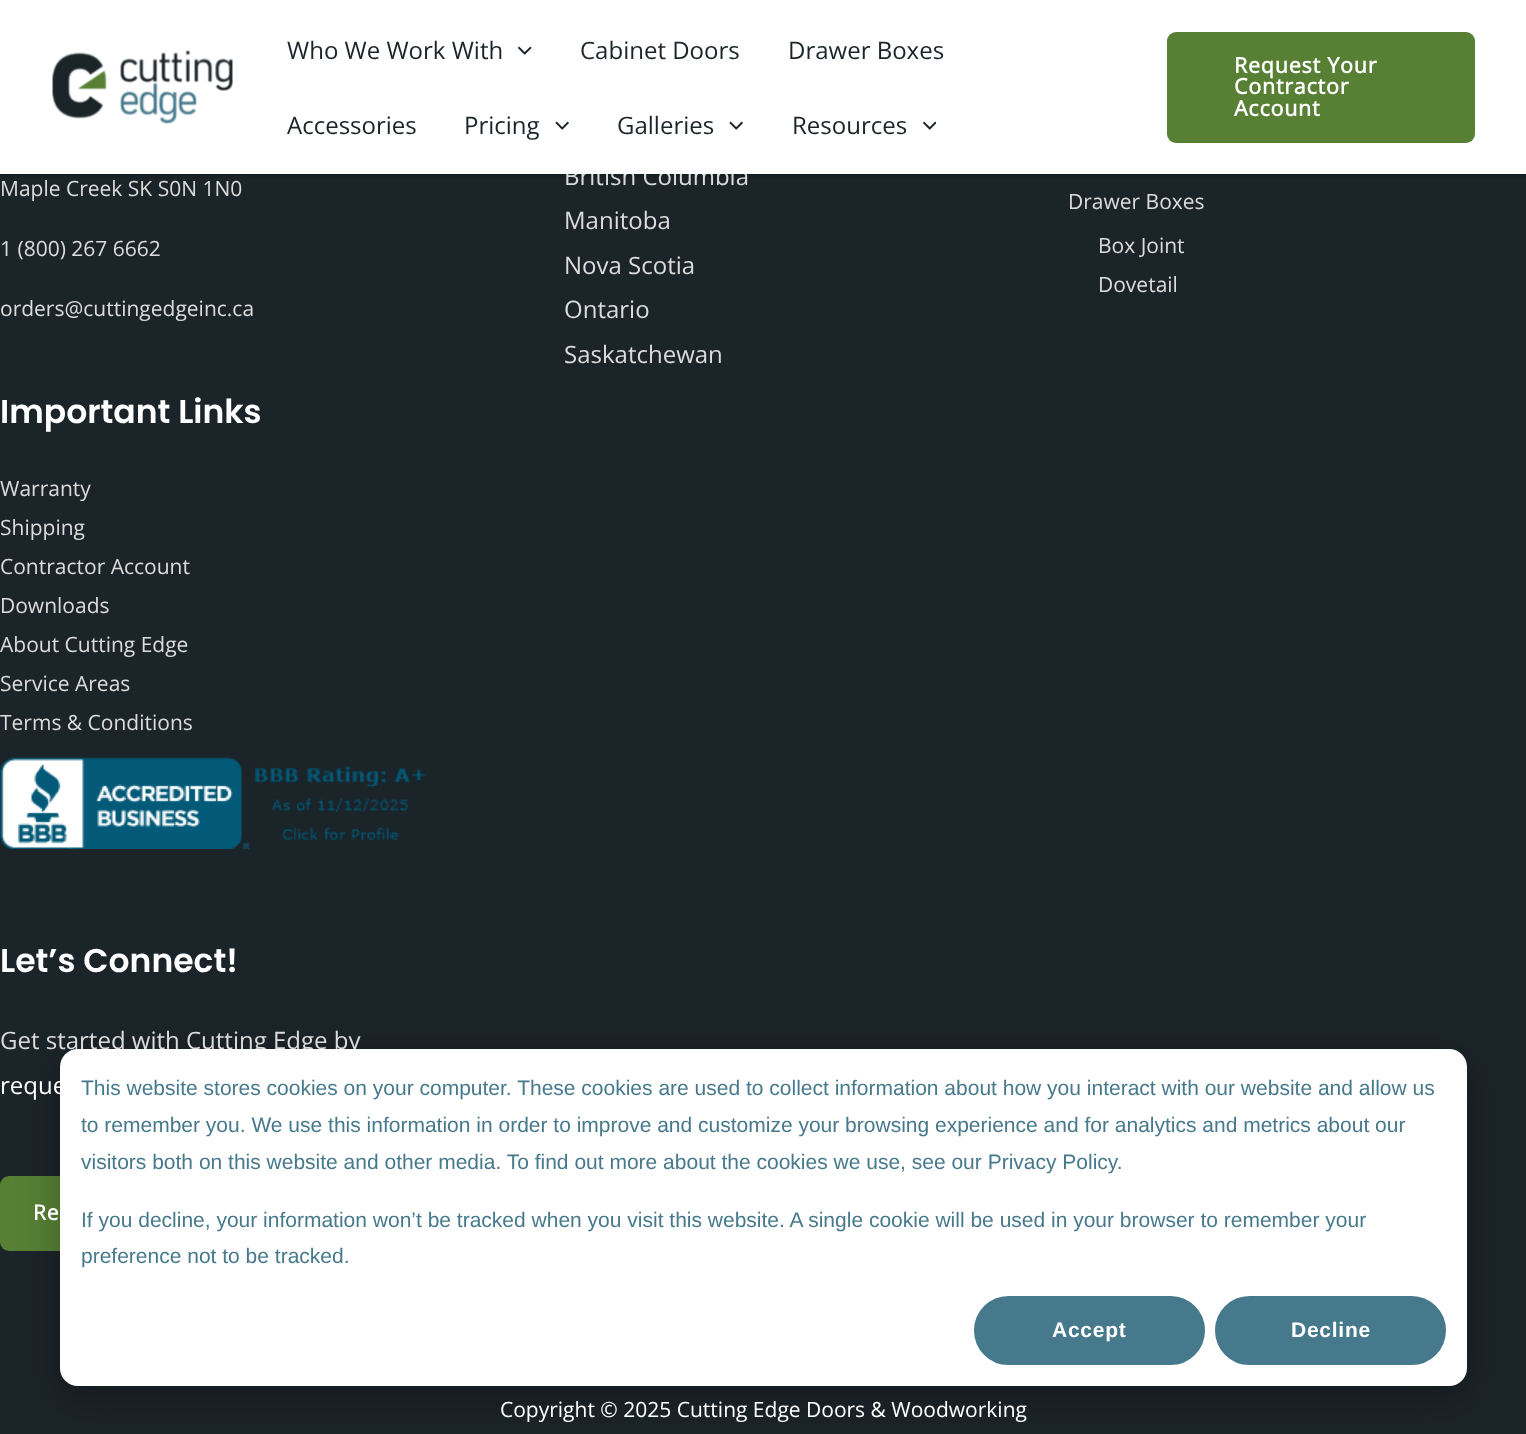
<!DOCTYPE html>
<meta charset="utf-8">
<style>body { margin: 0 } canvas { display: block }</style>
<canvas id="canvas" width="1526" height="1434"></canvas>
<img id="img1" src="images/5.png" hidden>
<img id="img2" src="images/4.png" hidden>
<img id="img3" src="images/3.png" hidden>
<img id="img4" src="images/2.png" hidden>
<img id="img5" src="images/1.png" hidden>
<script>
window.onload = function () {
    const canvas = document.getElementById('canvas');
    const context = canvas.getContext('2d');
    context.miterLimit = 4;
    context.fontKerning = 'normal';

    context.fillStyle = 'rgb(27, 36, 41)';
    context.fillRect(0, 0, 1526, 1434);
    context.fillStyle = 'rgba(0, 0, 0, 0.2)';
    context.filter = 'blur(1.5px)';
    context.beginPath();
    context.rect(0, 2, 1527, 174);
    context.fill();
    context.filter = 'none';
    context.drawImage(document.getElementById('img1'), 0, 757, 426, 92);
    context.fillStyle = 'rgb(87, 128, 52)';
    context.beginPath();
    context.roundRect(0, 1176, 416, 75, 9);
    context.fill();
    context.fillStyle = 'rgba(0, 0, 0, 0.28)';
    context.filter = 'blur(21px)';
    context.beginPath();
    context.roundRect(60, 1061, 1407, 337, 18);
    context.fill();
    context.filter = 'none';
    context.font = '21px Open Sans';
    context.fillStyle = 'rgb(220, 220, 221)';
    context.fillText('Maple Creek SK S0N 1N0', 0, 196);
    context.fillText('1 (800) 267 6662', 0, 256);
    context.fillText('orders@cuttingedgeinc.ca', 0, 316);
    context.font = '600 33px Poppins';
    context.fillStyle = 'rgb(255, 255, 255)';
    context.fillText('Important Links', 0, 423);
    context.font = '21px Open Sans';
    context.fillStyle = 'rgb(220, 220, 221)';
    context.fillText('Warranty', 0, 496);
    context.fillText('Shipping', 0, 535);
    context.fillText('Contractor Account', 0, 574);
    context.fillText('Downloads', 0, 613);
    context.fillText('About Cutting Edge', 0, 652);
    context.fillText('Service Areas', 0, 691);
    context.fillText('Terms & Conditions', 0, 730);
    context.font = '600 33px Poppins';
    context.fillStyle = 'rgb(255, 255, 255)';
    context.fillText('Let’s Connect!', 0, 972);
    context.font = '24px Open Sans';
    context.fillStyle = 'rgb(220, 220, 221)';
    context.fillText('Get started with Cutting Edge by', 0, 1049);
    context.fillStyle = 'rgb(255, 255, 255)';
    context.fillText('reque', 0, 1094);
    context.letterSpacing = '0.75px';
    context.font = 'bold 21px Open Sans';
    context.fillText('Re', 33, 1220);
    context.letterSpacing = '0px';
    context.font = '24px Open Sans';
    context.fillStyle = 'rgb(220, 220, 221)';
    context.fillText('British Columbia', 564, 185);
    context.fillStyle = 'rgb(255, 255, 255)';
    context.fillRect(0, 0, 1526, 174);
    context.drawImage(document.getElementById('img2'), 923, 121, 13, 9);
    context.fillStyle = 'rgb(27, 36, 41)';
    context.fillText('Resources', 792, 134);
    context.drawImage(document.getElementById('img3'), 729, 121, 14, 9);
    context.fillText('Galleries', 617, 134);
    context.drawImage(document.getElementById('img3'), 555, 121, 14, 9);
    context.fillText('Pricing', 464, 134);
    context.fillText('Accessories', 287, 134);
    context.fillText('Drawer Boxes', 788, 59);
    context.fillText('Cabinet Doors', 580, 59);
    context.drawImage(document.getElementById('img4'), 518, 46, 14, 9);
    context.fillText('Who We Work With', 287, 59);
    context.fillStyle = 'rgb(87, 128, 52)';
    context.beginPath();
    context.roundRect(1167, 32, 308, 111, 9);
    context.fill();
    context.letterSpacing = '0.75px';
    context.font = 'bold 21.5px Open Sans';
    context.fillStyle = 'rgb(255, 255, 255)';
    context.fillText('Account', 1234, 116);
    context.fillText('Contractor', 1234, 94);
    context.fillText('Request Your', 1234, 73);
    context.drawImage(document.getElementById('img5'), 52, 50, 181, 74);
    context.letterSpacing = '0px';
    context.font = '24px Open Sans';
    context.fillStyle = 'rgb(220, 220, 221)';
    context.fillText('Manitoba', 564, 229);
    context.fillText('Nova Scotia', 564, 274);
    context.fillText('Ontario', 564, 318);
    context.fillText('Saskatchewan', 564, 363);
    context.font = '21px Open Sans';
    context.fillText('Drawer Boxes', 1068, 209);
    context.fillText('Box Joint', 1098, 253);
    context.fillText('Dovetail', 1098, 292);
    context.fillStyle = 'rgb(255, 255, 255)';
    context.fillText('Copyright © 2025 Cutting Edge Doors & Woodworking', 500, 1417);
    context.beginPath();
    context.roundRect(60, 1049, 1407, 337, 18);
    context.fill();
    context.font = '21px Liberation Sans';
    context.fillStyle = 'rgb(70, 121, 140)';
    context.fillText('This website stores cookies on your computer. These cookies are used to collect information about how you interact with our website and allow us', 81, 1095);
    context.fillText('to remember you. We use this information in order to improve and customize your browsing experience and for analytics and metrics about our', 81, 1132);
    context.fillText('visitors both on this website and other media. To find out more about the cookies we use, see our Privacy Policy.', 81, 1169);
    context.fillText('If you decline, your information won’t be tracked when you visit this website. A single cookie will be used in your browser to remember your', 81, 1227);
    context.fillText('preference not to be tracked.', 81, 1263);
    context.beginPath();
    context.roundRect(975, 1297, 229, 67, 33.5);
    context.fill();
    context.strokeStyle = 'rgb(70, 121, 140)';
    context.lineWidth = 2;
    context.stroke();
    context.letterSpacing = '0.75px';
    context.font = 'bold 21px Liberation Sans';
    context.fillStyle = 'rgb(255, 255, 255)';
    context.fillText('Accept', 1052, 1337);
    context.fillStyle = 'rgb(70, 121, 140)';
    context.beginPath();
    context.roundRect(1216, 1297, 229, 67, 33.5);
    context.fill();
    context.stroke();
    context.fillStyle = 'rgb(255, 255, 255)';
    context.fillText('Decline', 1291, 1337);
};
</script>
